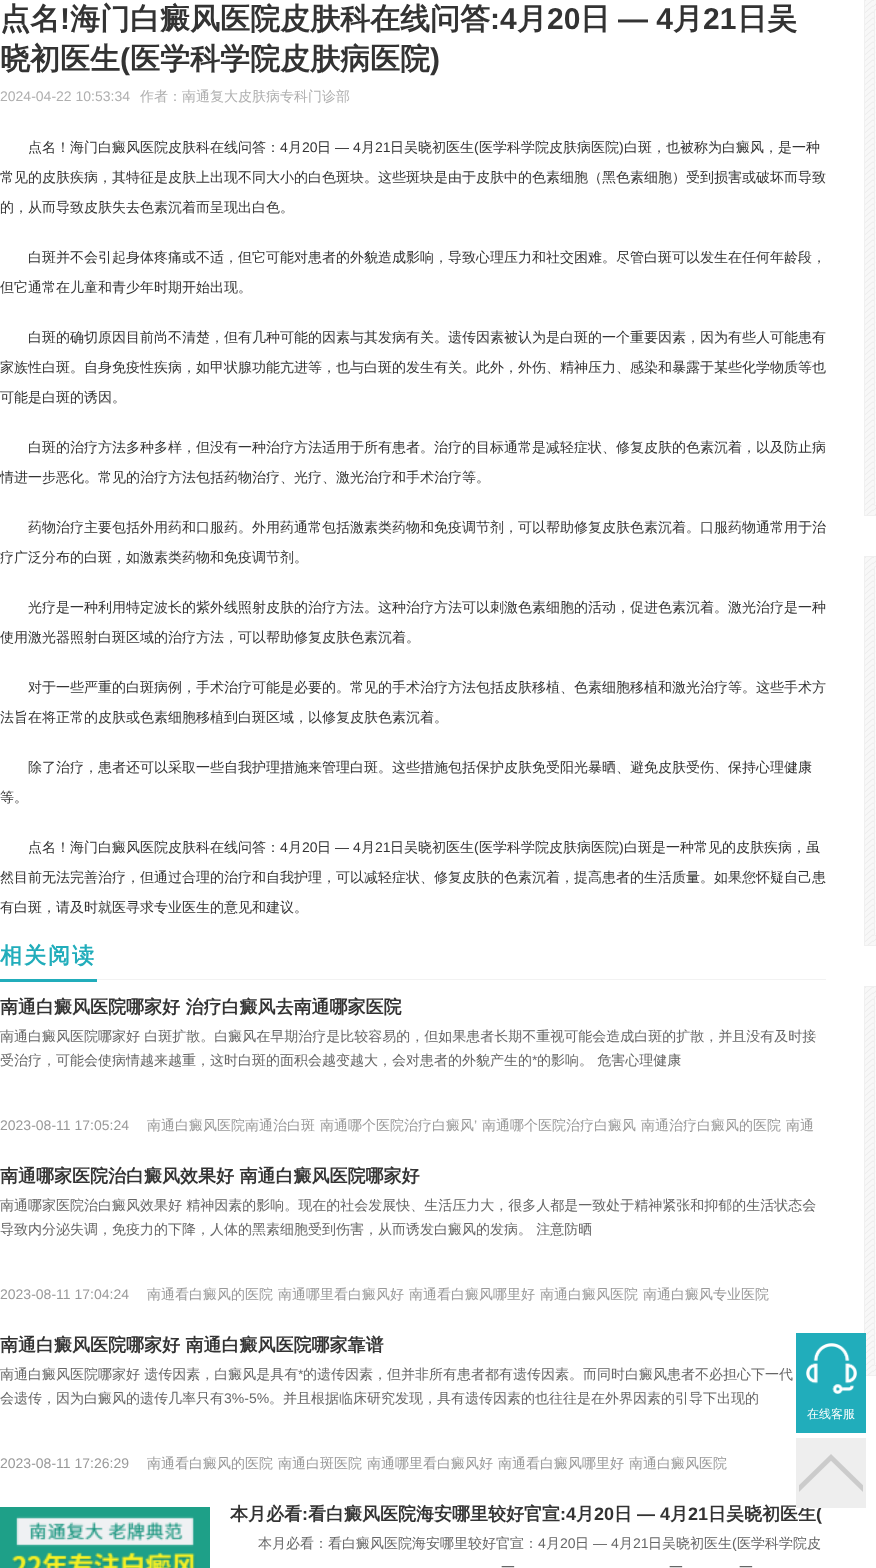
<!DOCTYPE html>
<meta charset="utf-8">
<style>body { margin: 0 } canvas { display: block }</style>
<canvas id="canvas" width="876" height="1568"></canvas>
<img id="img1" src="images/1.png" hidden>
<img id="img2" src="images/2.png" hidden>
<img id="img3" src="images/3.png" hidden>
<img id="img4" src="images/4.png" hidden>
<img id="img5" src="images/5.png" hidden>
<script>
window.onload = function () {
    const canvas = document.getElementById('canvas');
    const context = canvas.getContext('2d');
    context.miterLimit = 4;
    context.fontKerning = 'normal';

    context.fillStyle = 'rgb(255, 255, 255)';
    context.fillRect(0, 0, 876, 1568);
    context.fillStyle = 'rgb(242, 242, 242)';
    context.fillRect(97, 979, 729, 1);
    context.fillStyle = 'rgb(33, 173, 187)';
    context.fillRect(0, 979, 97, 3);
    context.drawImage(document.getElementById('img1'), 0, 1507, 210, 61);
    context.drawImage(document.getElementById('img2'), 865, 0, 11, 515);
    context.strokeStyle = 'rgb(240, 240, 240)';
    context.strokeRect(864.5, -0.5, 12, 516);
    context.fillStyle = 'rgba(255, 255, 255, 0.6)';
    context.beginPath();
    context.rect(874.5, 9.5, 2, 496);
    context.fill();
    context.stroke();
    context.drawImage(document.getElementById('img3'), 865, 557, 11, 388);
    context.strokeRect(864.5, 556.5, 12, 389);
    context.beginPath();
    context.rect(874.5, 566.5, 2, 369);
    context.fill();
    context.stroke();
    context.drawImage(document.getElementById('img3'), 865, 987, 11, 388);
    context.strokeRect(864.5, 986.5, 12, 389);
    context.beginPath();
    context.rect(874.5, 996.5, 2, 369);
    context.fill();
    context.stroke();
    context.fillStyle = 'rgb(33, 173, 187)';
    context.fillRect(796, 1333, 70, 100);
    context.drawImage(document.getElementById('img4'), 806, 1343, 51, 51);
    context.font = 'bold 30px WenQuanYi Zen Hei';
    context.fillStyle = 'rgb(51, 51, 51)';
    context.fillText('点名', 0, 29);
    context.font = 'bold 30px Liberation Sans';
    context.fillText('!', 60, 29);
    context.font = 'bold 30px WenQuanYi Zen Hei';
    context.fillText('海门白癜风医院皮肤科在线问答', 70, 29);
    context.font = 'bold 30px Liberation Sans';
    context.fillText(':4', 490, 29);
    context.font = 'bold 30px WenQuanYi Zen Hei';
    context.fillText('月', 517, 29);
    context.font = 'bold 30px Liberation Sans';
    context.fillText('20', 547, 29);
    context.font = 'bold 30px WenQuanYi Zen Hei';
    context.fillText('日', 580, 29);
    context.font = 'bold 30px Liberation Sans';
    context.fillText('— 4', 618, 29);
    context.font = 'bold 30px WenQuanYi Zen Hei';
    context.fillText('月', 673, 29);
    context.font = 'bold 30px Liberation Sans';
    context.fillText('21', 703, 29);
    context.font = 'bold 30px WenQuanYi Zen Hei';
    context.fillText('日吴', 737, 29);
    context.fillText('晓初医生', 0, 69);
    context.font = 'bold 30px Liberation Sans';
    context.fillText('(', 120, 69);
    context.font = 'bold 30px WenQuanYi Zen Hei';
    context.fillText('医学科学院皮肤病医院', 130, 69);
    context.font = 'bold 30px Liberation Sans';
    context.fillText(')', 430, 69);
    context.font = '14px Liberation Sans';
    context.fillStyle = 'rgb(175, 175, 175)';
    context.fillText('2024-04-22 10:53:34', 0, 101);
    context.font = '500 14px WenQuanYi Zen Hei';
    context.fillText('作者：南通复大皮肤病专科门诊部', 140, 101);
    context.fillStyle = 'rgb(51, 51, 51)';
    context.fillText('点名！海门白癜风医院皮肤科在线问答：', 28, 152);
    context.font = '14px Liberation Sans';
    context.fillText('4', 280, 152);
    context.font = '500 14px WenQuanYi Zen Hei';
    context.fillText('月', 288, 152);
    context.font = '14px Liberation Sans';
    context.fillText('20', 302, 152);
    context.font = '500 14px WenQuanYi Zen Hei';
    context.fillText('日', 317, 152);
    context.font = '14px Liberation Sans';
    context.fillText('— 4', 335, 152);
    context.font = '500 14px WenQuanYi Zen Hei';
    context.fillText('月', 361, 152);
    context.font = '14px Liberation Sans';
    context.fillText('21', 375, 152);
    context.font = '500 14px WenQuanYi Zen Hei';
    context.fillText('日吴晓初医生', 390, 152);
    context.font = '14px Liberation Sans';
    context.fillText('(', 474, 152);
    context.font = '500 14px WenQuanYi Zen Hei';
    context.fillText('医学科学院皮肤病医院', 479, 152);
    context.font = '14px Liberation Sans';
    context.fillText(')', 619, 152);
    context.font = '500 14px WenQuanYi Zen Hei';
    context.fillText('白斑，也被称为白癜风，是一种', 624, 152);
    context.fillText('常见的皮肤疾病，其特征是皮肤上出现不同大小的白色斑块。这些斑块是由于皮肤中的色素细胞（黑色素细胞）受到损害或破坏而导致', 0, 182);
    context.fillText('的，从而导致皮肤失去色素沉着而呈现出白色。', 0, 212);
    context.fillText('白斑并不会引起身体疼痛或不适，但它可能对患者的外貌造成影响，导致心理压力和社交困难。尽管白斑可以发生在任何年龄段，', 28, 262);
    context.fillText('但它通常在儿童和青少年时期开始出现。', 0, 292);
    context.fillText('白斑的确切原因目前尚不清楚，但有几种可能的因素与其发病有关。遗传因素被认为是白斑的一个重要因素，因为有些人可能患有', 28, 342);
    context.fillText('家族性白斑。自身免疫性疾病，如甲状腺功能亢进等，也与白斑的发生有关。此外，外伤、精神压力、感染和暴露于某些化学物质等也', 0, 372);
    context.fillText('可能是白斑的诱因。', 0, 402);
    context.fillText('白斑的治疗方法多种多样，但没有一种治疗方法适用于所有患者。治疗的目标通常是减轻症状、修复皮肤的色素沉着，以及防止病', 28, 452);
    context.fillText('情进一步恶化。常见的治疗方法包括药物治疗、光疗、激光治疗和手术治疗等。', 0, 482);
    context.fillText('药物治疗主要包括外用药和口服药。外用药通常包括激素类药物和免疫调节剂，可以帮助修复皮肤色素沉着。口服药物通常用于治', 28, 532);
    context.fillText('疗广泛分布的白斑，如激素类药物和免疫调节剂。', 0, 562);
    context.fillText('光疗是一种利用特定波长的紫外线照射皮肤的治疗方法。这种治疗方法可以刺激色素细胞的活动，促进色素沉着。激光治疗是一种', 28, 612);
    context.fillText('使用激光器照射白斑区域的治疗方法，可以帮助修复皮肤色素沉着。', 0, 642);
    context.fillText('对于一些严重的白斑病例，手术治疗可能是必要的。常见的手术治疗方法包括皮肤移植、色素细胞移植和激光治疗等。这些手术方', 28, 692);
    context.fillText('法旨在将正常的皮肤或色素细胞移植到白斑区域，以修复皮肤色素沉着。', 0, 722);
    context.fillText('除了治疗，患者还可以采取一些自我护理措施来管理白斑。这些措施包括保护皮肤免受阳光暴晒、避免皮肤受伤、保持心理健康', 28, 772);
    context.fillText('等。', 0, 802);
    context.fillText('点名！海门白癜风医院皮肤科在线问答：', 28, 852);
    context.font = '14px Liberation Sans';
    context.fillText('4', 280, 852);
    context.font = '500 14px WenQuanYi Zen Hei';
    context.fillText('月', 288, 852);
    context.font = '14px Liberation Sans';
    context.fillText('20', 302, 852);
    context.font = '500 14px WenQuanYi Zen Hei';
    context.fillText('日', 317, 852);
    context.font = '14px Liberation Sans';
    context.fillText('— 4', 335, 852);
    context.font = '500 14px WenQuanYi Zen Hei';
    context.fillText('月', 361, 852);
    context.font = '14px Liberation Sans';
    context.fillText('21', 375, 852);
    context.font = '500 14px WenQuanYi Zen Hei';
    context.fillText('日吴晓初医生', 390, 852);
    context.font = '14px Liberation Sans';
    context.fillText('(', 474, 852);
    context.font = '500 14px WenQuanYi Zen Hei';
    context.fillText('医学科学院皮肤病医院', 479, 852);
    context.font = '14px Liberation Sans';
    context.fillText(')', 619, 852);
    context.font = '500 14px WenQuanYi Zen Hei';
    context.fillText('白斑是一种常见的皮肤疾病，虽', 624, 852);
    context.fillText('然目前无法完善治疗，但通过合理的治疗和自我护理，可以减轻症状、修复皮肤的色素沉着，提高患者的生活质量。如果您怀疑自己患', 0, 882);
    context.fillText('有白斑，请及时就医寻求专业医生的意见和建议。', 0, 912);
    context.letterSpacing = '2px';
    context.font = 'bold 22px WenQuanYi Zen Hei';
    context.fillStyle = 'rgb(33, 173, 187)';
    context.fillText('相关阅读', 0, 963);
    context.letterSpacing = '0px';
    context.font = 'bold 18px WenQuanYi Zen Hei';
    context.fillStyle = 'rgb(51, 51, 51)';
    context.fillText('南通白癜风医院哪家好 治疗白癜风去南通哪家医院', 0, 1013);
    context.font = '500 14px WenQuanYi Zen Hei';
    context.fillStyle = 'rgb(102, 102, 102)';
    context.fillText('南通白癜风医院哪家好 白斑扩散。白癜风在早期治疗是比较容易的，但如果患者长期不重视可能会造成白斑的扩散，并且没有及时接', 0, 1041);
    context.fillText('受治疗，可能会使病情越来越重，这时白斑的面积会越变越大，会对患者的外貌产生的', 0, 1065);
    context.font = '14px Liberation Sans';
    context.fillText('*', 532, 1065);
    context.font = '500 14px WenQuanYi Zen Hei';
    context.fillText('的影响。 危害心理健康', 537, 1065);
    context.font = '14px Liberation Sans';
    context.fillStyle = 'rgb(153, 153, 153)';
    context.fillText('2023-08-11 17:05:24', 0, 1130);
    context.font = '500 14px WenQuanYi Zen Hei';
    context.fillText('南通白癜风医院南通治白斑', 147, 1130);
    context.fillText('南通哪个医院治疗白癜风', 320, 1130);
    context.font = '14px Liberation Sans';
    context.fillText('’', 474, 1130);
    context.font = '500 14px WenQuanYi Zen Hei';
    context.fillText('南通哪个医院治疗白癜风', 482, 1130);
    context.fillText('南通治疗白癜风的医院', 641, 1130);
    context.fillText('南通', 786, 1130);
    context.font = 'bold 18px WenQuanYi Zen Hei';
    context.fillStyle = 'rgb(51, 51, 51)';
    context.fillText('南通哪家医院治白癜风效果好 南通白癜风医院哪家好', 0, 1182);
    context.font = '500 14px WenQuanYi Zen Hei';
    context.fillStyle = 'rgb(102, 102, 102)';
    context.fillText('南通哪家医院治白癜风效果好 精神因素的影响。现在的社会发展快、生活压力大，很多人都是一致处于精神紧张和抑郁的生活状态会', 0, 1210);
    context.fillText('导致内分泌失调，免疫力的下降，人体的黑素细胞受到伤害，从而诱发白癜风的发病。 注意防晒', 0, 1234);
    context.font = '14px Liberation Sans';
    context.fillStyle = 'rgb(153, 153, 153)';
    context.fillText('2023-08-11 17:04:24', 0, 1299);
    context.font = '500 14px WenQuanYi Zen Hei';
    context.fillText('南通看白癜风的医院', 147, 1299);
    context.fillText('南通哪里看白癜风好', 278, 1299);
    context.fillText('南通看白癜风哪里好', 409, 1299);
    context.fillText('南通白癜风医院', 540, 1299);
    context.fillText('南通白癜风专业医院', 643, 1299);
    context.font = 'bold 18px WenQuanYi Zen Hei';
    context.fillStyle = 'rgb(51, 51, 51)';
    context.fillText('南通白癜风医院哪家好 南通白癜风医院哪家靠谱', 0, 1351);
    context.font = '500 14px WenQuanYi Zen Hei';
    context.fillStyle = 'rgb(102, 102, 102)';
    context.fillText('南通白癜风医院哪家好 遗传因素，白癜风是具有', 0, 1379);
    context.font = '14px Liberation Sans';
    context.fillText('*', 298, 1379);
    context.font = '500 14px WenQuanYi Zen Hei';
    context.fillText('的遗传因素，但并非所有患者都有遗传因素。而同时白癜风患者不必担心下一代', 303, 1379);
    context.fillText('会遗传，因为白癜风的遗传几率只有', 0, 1403);
    context.font = '14px Liberation Sans';
    context.fillText('3%-5%', 224, 1403);
    context.font = '500 14px WenQuanYi Zen Hei';
    context.fillText('。并且根据临床研究发现，具有遗传因素的也往往是在外界因素的引导下出现的', 269, 1403);
    context.font = '14px Liberation Sans';
    context.fillStyle = 'rgb(153, 153, 153)';
    context.fillText('2023-08-11 17:26:29', 0, 1468);
    context.font = '500 14px WenQuanYi Zen Hei';
    context.fillText('南通看白癜风的医院', 147, 1468);
    context.fillText('南通白斑医院', 278, 1468);
    context.fillText('南通哪里看白癜风好', 367, 1468);
    context.fillText('南通看白癜风哪里好', 498, 1468);
    context.fillText('南通白癜风医院', 629, 1468);
    context.font = 'bold 18px WenQuanYi Zen Hei';
    context.fillStyle = 'rgb(51, 51, 51)';
    context.fillText('本月必看', 230, 1520);
    context.font = 'bold 18px Liberation Sans';
    context.fillText(':', 302, 1520);
    context.font = 'bold 18px WenQuanYi Zen Hei';
    context.fillText('看白癜风医院海安哪里较好官宣', 308, 1520);
    context.font = 'bold 18px Liberation Sans';
    context.fillText(':4', 560, 1520);
    context.font = 'bold 18px WenQuanYi Zen Hei';
    context.fillText('月', 576, 1520);
    context.font = 'bold 18px Liberation Sans';
    context.fillText('20', 594, 1520);
    context.font = 'bold 18px WenQuanYi Zen Hei';
    context.fillText('日', 614, 1520);
    context.font = 'bold 18px Liberation Sans';
    context.fillText('— 4', 637, 1520);
    context.font = 'bold 18px WenQuanYi Zen Hei';
    context.fillText('月', 670, 1520);
    context.font = 'bold 18px Liberation Sans';
    context.fillText('21', 688, 1520);
    context.font = 'bold 18px WenQuanYi Zen Hei';
    context.fillText('日吴晓初医生', 708, 1520);
    context.font = 'bold 18px Liberation Sans';
    context.fillText('(', 816, 1520);
    context.font = '500 14px WenQuanYi Zen Hei';
    context.fillStyle = 'rgb(102, 102, 102)';
    context.fillText('本月必看：看白癜风医院海安哪里较好官宣：', 258, 1548);
    context.font = '14px Liberation Sans';
    context.fillText('4', 538, 1548);
    context.font = '500 14px WenQuanYi Zen Hei';
    context.fillText('月', 546, 1548);
    context.font = '14px Liberation Sans';
    context.fillText('20', 560, 1548);
    context.font = '500 14px WenQuanYi Zen Hei';
    context.fillText('日', 575, 1548);
    context.font = '14px Liberation Sans';
    context.fillText('— 4', 593, 1548);
    context.font = '500 14px WenQuanYi Zen Hei';
    context.fillText('月', 619, 1548);
    context.font = '14px Liberation Sans';
    context.fillText('21', 633, 1548);
    context.font = '500 14px WenQuanYi Zen Hei';
    context.fillText('日吴晓初医生', 648, 1548);
    context.font = '14px Liberation Sans';
    context.fillText('(', 732, 1548);
    context.font = '500 14px WenQuanYi Zen Hei';
    context.fillText('医学科学院皮', 737, 1548);
    context.fillText('一', 501, 1572);
    context.fillText('一', 669, 1572);
    context.fillText('一', 739, 1572);
    context.font = '500 12px WenQuanYi Zen Hei';
    context.fillStyle = 'rgb(255, 255, 255)';
    context.fillText('在线客服', 807, 1418);
    context.fillStyle = 'rgb(238, 238, 238)';
    context.fillRect(796, 1438, 70, 70);
    context.drawImage(document.getElementById('img5'), 799, 1454, 64, 38);
};
</script>
